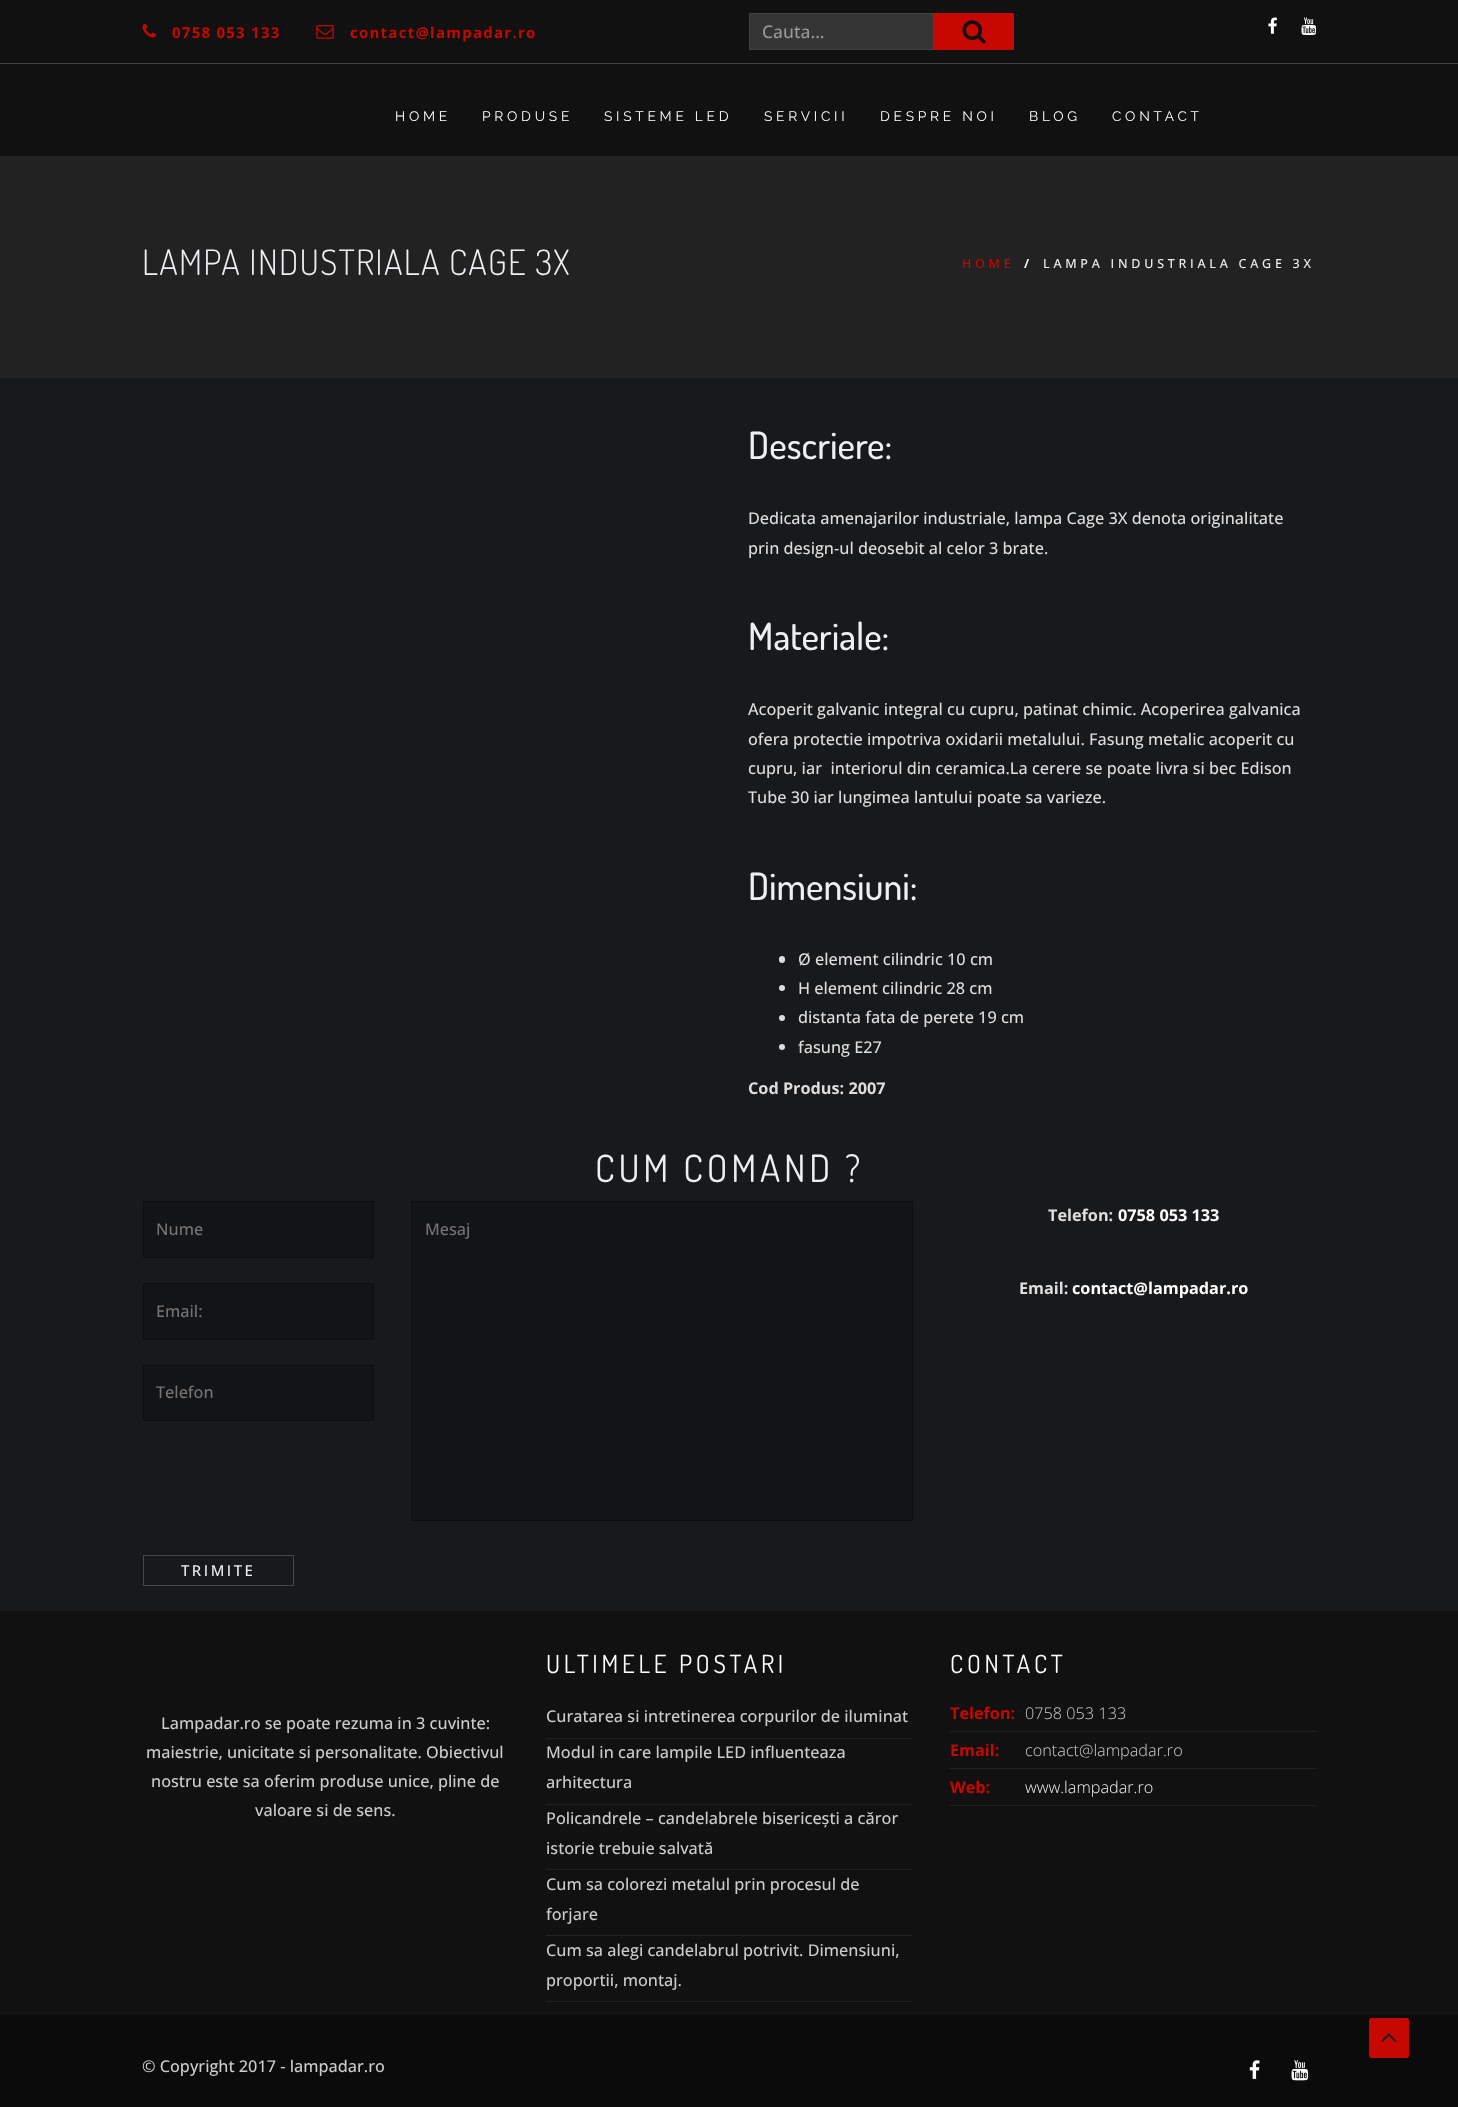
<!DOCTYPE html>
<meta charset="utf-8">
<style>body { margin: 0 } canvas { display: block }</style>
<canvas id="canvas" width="1458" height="2107"></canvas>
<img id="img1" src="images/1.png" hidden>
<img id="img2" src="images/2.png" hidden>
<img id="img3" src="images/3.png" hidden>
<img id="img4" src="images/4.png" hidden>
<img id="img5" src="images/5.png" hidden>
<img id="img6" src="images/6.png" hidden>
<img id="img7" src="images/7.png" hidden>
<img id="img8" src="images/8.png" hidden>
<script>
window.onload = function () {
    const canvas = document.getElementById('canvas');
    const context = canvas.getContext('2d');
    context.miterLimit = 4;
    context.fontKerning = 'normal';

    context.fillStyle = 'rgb(34, 34, 34)';
    context.fillRect(0, 0, 1458, 2107);
    context.fillStyle = 'rgb(17, 17, 17)';
    context.fillRect(0, 0, 1458, 156);
    context.fillStyle = 'rgb(65, 65, 65)';
    context.fillRect(0, 63, 1458, 1);
    context.drawImage(document.getElementById('img1'), 142, 23, 15, 15);
    context.drawImage(document.getElementById('img2'), 316, 25, 18, 14);
    context.fillStyle = 'rgb(53, 53, 53)';
    context.fillRect(750, 15, 183, 34);
    context.fillStyle = 'rgb(49, 49, 49)';
    context.fillRect(750, 14, 183, 1);
    context.strokeStyle = 'rgb(67, 67, 67)';
    context.strokeRect(749.5, 13.5, 184, 36);
    context.fillStyle = 'rgb(198, 8, 0)';
    context.fillRect(934, 13, 80, 37);
    context.drawImage(document.getElementById('img3'), 962, 20, 24, 24);
    context.drawImage(document.getElementById('img4'), 1268, 17, 9, 17);
    context.drawImage(document.getElementById('img5'), 1301, 17, 15, 18);
    context.fillStyle = 'rgb(24, 25, 27)';
    context.fillRect(0, 378, 1458, 1233);
    context.fillStyle = 'rgb(221, 221, 221)';
    context.beginPath();
    context.roundRect(779, 956, 6, 7, 3);
    context.fill();
    context.beginPath();
    context.arc(782, 988, 3, 0, 2 * Math.PI);
    context.fill();
    context.beginPath();
    context.arc(782, 1018, 3, 0, 2 * Math.PI);
    context.fill();
    context.beginPath();
    context.arc(782, 1047, 3, 0, 2 * Math.PI);
    context.fill();
    context.fillStyle = 'rgb(19, 20, 22)';
    context.beginPath();
    context.rect(143.5, 1201.5, 230, 56);
    context.fill();
    context.strokeStyle = 'rgb(13, 14, 15)';
    context.stroke();
    context.beginPath();
    context.rect(143.5, 1283.5, 230, 56);
    context.fill();
    context.stroke();
    context.beginPath();
    context.rect(143.5, 1365.5, 230, 55);
    context.fill();
    context.stroke();
    context.beginPath();
    context.rect(411.5, 1201.5, 501, 319);
    context.fill();
    context.stroke();
    context.strokeStyle = 'rgb(70, 71, 73)';
    context.strokeRect(143.5, 1555.5, 150, 30);
    context.fillStyle = 'rgb(17, 17, 17)';
    context.fillRect(0, 1611, 1458, 404);
    context.fillStyle = 'rgb(34, 34, 34)';
    context.fillRect(546, 1738, 367, 1);
    context.fillRect(546, 1804, 367, 1);
    context.fillRect(546, 1869, 367, 1);
    context.fillRect(546, 1935, 367, 1);
    context.fillRect(546, 2001, 367, 1);
    context.fillRect(950, 1731, 366, 1);
    context.fillRect(950, 1768, 366, 1);
    context.fillRect(950, 1805, 366, 1);
    context.fillStyle = 'rgb(11, 11, 11)';
    context.fillRect(0, 2015, 1458, 92);
    context.fillStyle = 'rgb(198, 8, 0)';
    context.beginPath();
    context.roundRect(1369, 2018, 40, 40, 2.5);
    context.fill();
    context.drawImage(document.getElementById('img6'), 1381, 2033, 16, 10);
    context.drawImage(document.getElementById('img7'), 1249, 2060, 11, 19);
    context.drawImage(document.getElementById('img8'), 1291, 2060, 18, 21);
    context.letterSpacing = '1.25px';
    context.font = 'bold 15px Open Sans';
    context.fillText('0758 053 133', 172, 38);
    context.fillText('contact@lampadar.ro', 350, 38);
    context.letterSpacing = '0px';
    context.font = '500 17.5px Open Sans';
    context.fillStyle = 'rgb(153, 153, 153)';
    context.fillText('Cauta...', 762, 38);
    context.letterSpacing = '3.75px';
    context.font = '13.75px Raleway';
    context.fillStyle = 'rgb(255, 255, 255)';
    context.fillText('HOME', 395, 121);
    context.fillText('PRODUSE', 482, 121);
    context.fillText('SISTEME LED', 604, 121);
    context.fillText('SERVICII', 764, 121);
    context.fillText('DESPRE NOI', 880, 121);
    context.fillText('BLOG', 1029, 121);
    context.fillText('CONTACT', 1112, 121);
    context.letterSpacing = '1.25px';
    context.font = '300 35px Dosis';
    context.fillStyle = 'rgb(236, 239, 243)';
    context.fillText('LAMPA INDUSTRIALA CAGE 3X', 142, 275);
    context.letterSpacing = '3.75px';
    context.font = '500 12.5px Open Sans';
    context.fillStyle = 'rgb(198, 8, 0)';
    context.fillText('HOME', 962, 268);
    context.font = 'bold 12.5px Open Sans';
    context.fillStyle = 'rgb(236, 239, 243)';
    context.fillText('/', 1024, 268);
    context.font = '500 12.5px Open Sans';
    context.fillText('LAMPA INDUSTRIALA CAGE 3X', 1043, 268);
    context.letterSpacing = '0px';
    context.font = '500 37.5px Dosis';
    context.fillText('Descriere:', 748, 459);
    context.font = '500 16.25px Open Sans';
    context.fillStyle = 'rgb(221, 221, 221)';
    context.fillText('Dedicata amenajarilor industriale, lampa Cage 3X denota originalitate', 748, 524);
    context.fillText('prin design-ul deosebit al celor 3 brate.', 748, 554);
    context.font = '500 37.5px Dosis';
    context.fillStyle = 'rgb(236, 239, 243)';
    context.fillText('Materiale:', 748, 650);
    context.font = '500 16.25px Open Sans';
    context.fillStyle = 'rgb(221, 221, 221)';
    context.fillText('Acoperit galvanic integral cu cupru, patinat chimic. Acoperirea galvanica', 748, 715);
    context.fillText('ofera protectie impotriva oxidarii metalului. Fasung metalic acoperit cu', 748, 745);
    context.fillText('cupru, iar  interiorul din ceramica.La cerere se poate livra si bec Edison', 748, 774);
    context.fillText('Tube 30 iar lungimea lantului poate sa varieze.', 748, 803);
    context.font = '500 37.5px Dosis';
    context.fillStyle = 'rgb(236, 239, 243)';
    context.fillText('Dimensiuni:', 748, 900);
    context.font = '500 16.25px Open Sans';
    context.fillStyle = 'rgb(221, 221, 221)';
    context.fillText('Ø element cilindric 10 cm', 798, 965);
    context.fillText('H element cilindric 28 cm', 798, 994);
    context.fillText('distanta fata de perete 19 cm', 798, 1023);
    context.fillText('fasung E27', 798, 1053);
    context.font = 'bold 16.25px Open Sans';
    context.fillText('Cod Produs: 2007', 748, 1094);
    context.letterSpacing = '3.75px';
    context.font = '37.5px Dosis';
    context.fillStyle = 'rgb(236, 239, 243)';
    context.fillText('CUM COMAND ?', 595, 1182);
    context.letterSpacing = '0px';
    context.font = '500 16.25px Open Sans';
    context.fillStyle = 'rgb(117, 117, 117)';
    context.fillText('Nume', 156, 1235);
    context.fillText('Email:', 156, 1317);
    context.fillText('Telefon', 156, 1398);
    context.fillText('Mesaj', 425, 1235);
    context.letterSpacing = '2.5px';
    context.font = '500 15px Open Sans';
    context.fillStyle = 'rgb(236, 239, 243)';
    context.fillText('TRIMITE', 181, 1576);
    context.letterSpacing = '0px';
    context.font = 'bold 16.25px Open Sans';
    context.fillStyle = 'rgb(221, 221, 221)';
    context.fillText('Telefon:', 1048, 1221);
    context.fillStyle = 'rgb(255, 255, 255)';
    context.fillText('0758 053 133', 1118, 1221);
    context.fillStyle = 'rgb(221, 221, 221)';
    context.fillText('Email:', 1019, 1294);
    context.fillStyle = 'rgb(255, 255, 255)';
    context.fillText('contact@lampadar.ro', 1072, 1294);
    context.font = '500 16.25px Open Sans';
    context.fillStyle = 'rgb(204, 204, 204)';
    context.fillText('Lampadar.ro se poate rezuma in 3 cuvinte:', 161, 1729);
    context.fillText('maiestrie, unicitate si personalitate. Obiectivul', 146, 1758);
    context.fillText('nostru este sa oferim produse unice, pline de', 151, 1787);
    context.fillText('valoare si de sens.', 255, 1816);
    context.letterSpacing = '3.75px';
    context.font = '25px Dosis';
    context.fillStyle = 'rgb(255, 255, 255)';
    context.fillText('ULTIMELE POSTARI', 546, 1673);
    context.letterSpacing = '0px';
    context.font = '500 16.25px Open Sans';
    context.fillStyle = 'rgb(204, 204, 204)';
    context.fillText('Curatarea si intretinerea corpurilor de iluminat', 546, 1722);
    context.fillText('Modul in care lampile LED influenteaza', 546, 1758);
    context.fillText('arhitectura', 546, 1788);
    context.fillText('Policandrele – candelabrele bisericești a căror', 546, 1824);
    context.fillText('istorie trebuie salvată', 546, 1854);
    context.fillText('Cum sa colorezi metalul prin procesul de', 546, 1890);
    context.fillText('forjare', 546, 1920);
    context.fillText('Cum sa alegi candelabrul potrivit. Dimensiuni,', 546, 1956);
    context.fillText('proportii, montaj.', 546, 1986);
    context.letterSpacing = '3.75px';
    context.font = '25px Dosis';
    context.fillStyle = 'rgb(255, 255, 255)';
    context.fillText('CONTACT', 950, 1673);
    context.letterSpacing = '0px';
    context.font = 'bold 16.25px Open Sans';
    context.fillStyle = 'rgb(198, 8, 0)';
    context.fillText('Telefon:', 950, 1719);
    context.font = '300 16.25px Open Sans';
    context.fillStyle = 'rgb(204, 204, 204)';
    context.fillText('0758 053 133', 1025, 1719);
    context.font = 'bold 16.25px Open Sans';
    context.fillStyle = 'rgb(198, 8, 0)';
    context.fillText('Email:', 950, 1756);
    context.font = '300 16.25px Open Sans';
    context.fillStyle = 'rgb(204, 204, 204)';
    context.fillText('contact@lampadar.ro', 1025, 1756);
    context.font = 'bold 16.25px Open Sans';
    context.fillStyle = 'rgb(198, 8, 0)';
    context.fillText('Web:', 950, 1793);
    context.font = '300 16.25px Open Sans';
    context.fillStyle = 'rgb(236, 239, 243)';
    context.fillText('www.lampadar.ro', 1025, 1793);
    context.font = '500 16.25px Open Sans';
    context.fillStyle = 'rgb(204, 204, 204)';
    context.fillText('© Copyright 2017 - lampadar.ro', 142, 2072);
};
</script>
